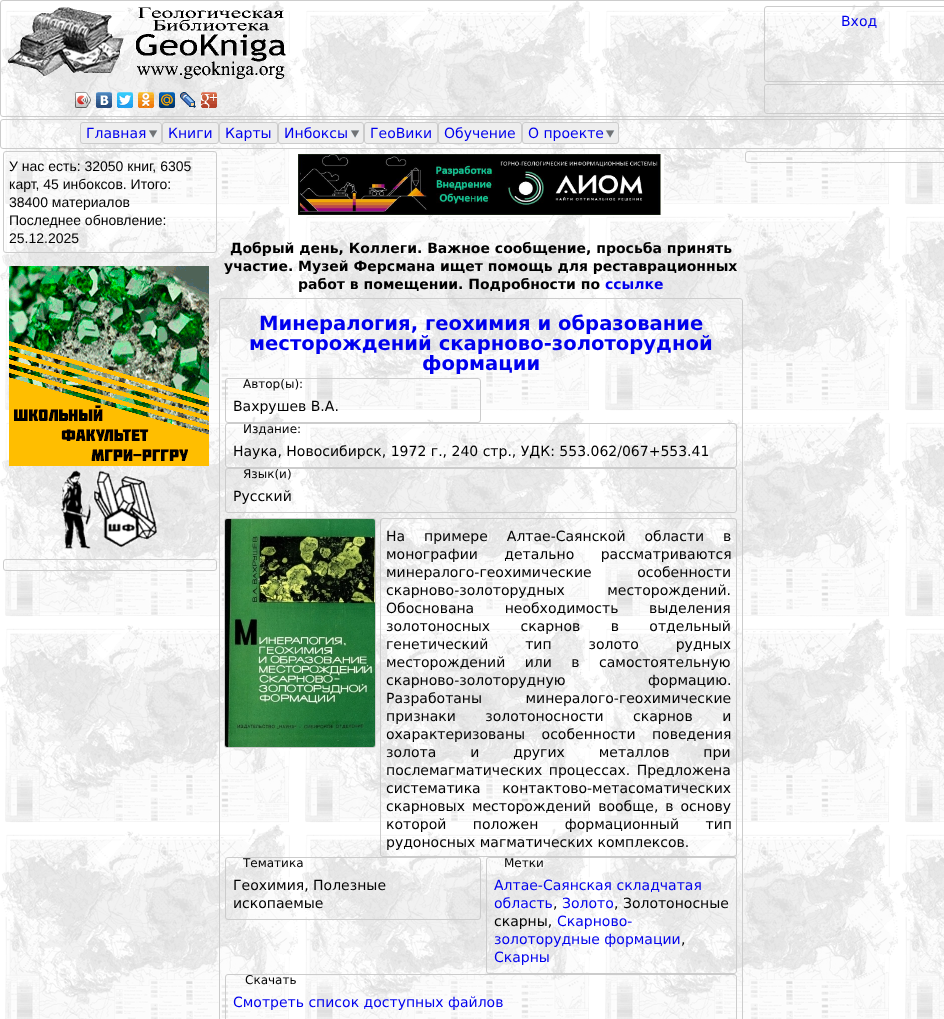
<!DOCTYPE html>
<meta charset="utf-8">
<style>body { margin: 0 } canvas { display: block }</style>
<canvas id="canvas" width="944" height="1019"></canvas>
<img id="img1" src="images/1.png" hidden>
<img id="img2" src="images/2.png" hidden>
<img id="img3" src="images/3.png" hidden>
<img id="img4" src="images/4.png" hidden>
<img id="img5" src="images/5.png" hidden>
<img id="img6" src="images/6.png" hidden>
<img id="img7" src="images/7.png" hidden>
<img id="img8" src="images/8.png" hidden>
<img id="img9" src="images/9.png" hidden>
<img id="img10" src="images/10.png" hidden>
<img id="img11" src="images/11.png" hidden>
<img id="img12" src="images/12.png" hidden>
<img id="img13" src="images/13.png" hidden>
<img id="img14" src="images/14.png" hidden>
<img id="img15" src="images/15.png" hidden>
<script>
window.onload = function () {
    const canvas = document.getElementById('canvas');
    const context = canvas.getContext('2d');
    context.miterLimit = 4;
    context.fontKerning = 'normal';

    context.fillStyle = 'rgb(255, 255, 255)';
    context.fillRect(0, 0, 944, 1019);
    context.drawImage(document.getElementById('img1'), 0, 1, 944, 1018);
    context.beginPath();
    context.roundRect(0.5, 0.5, 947, 116, 2.5);
    context.strokeStyle = 'rgb(204, 204, 204)';
    context.stroke();
    context.drawImage(document.getElementById('img2'), 8, 7, 278, 72);
    context.drawImage(document.getElementById('img3'), 75, 92, 16, 16);
    context.drawImage(document.getElementById('img4'), 75, 92, 16, 16);
    context.drawImage(document.getElementById('img5'), 96, 92, 16, 16);
    context.drawImage(document.getElementById('img6'), 117, 92, 16, 16);
    context.drawImage(document.getElementById('img7'), 138, 92, 16, 16);
    context.drawImage(document.getElementById('img8'), 159, 92, 16, 16);
    context.drawImage(document.getElementById('img9'), 180, 92, 16, 16);
    context.drawImage(document.getElementById('img10'), 201, 92, 16, 16);
    context.beginPath();
    context.roundRect(764.5, 6.5, 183, 75, 2.5);
    context.stroke();
    context.beginPath();
    context.roundRect(764.5, 84.5, 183, 29, 2.5);
    context.stroke();
    context.beginPath();
    context.roundRect(0.5, 119.5, 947, 29, 2.5);
    context.stroke();
    context.fillStyle = 'rgb(238, 238, 238)';
    context.beginPath();
    context.roundRect(80, 122, 82, 22, 3);
    context.fill();
    context.drawImage(document.getElementById('img11'), 148, 130, 10, 8);
    context.beginPath();
    context.roundRect(80.5, 122.5, 81, 21, 2.5);
    context.stroke();
    context.beginPath();
    context.roundRect(162.5, 122.5, 56, 21, 2.5);
    context.fill();
    context.stroke();
    context.beginPath();
    context.roundRect(219.5, 122.5, 58, 21, 2.5);
    context.fill();
    context.stroke();
    context.beginPath();
    context.roundRect(278, 122, 86, 22, 3);
    context.fill();
    context.drawImage(document.getElementById('img11'), 350, 130, 10, 8);
    context.beginPath();
    context.roundRect(278.5, 122.5, 85, 21, 2.5);
    context.stroke();
    context.beginPath();
    context.roundRect(364.5, 122.5, 73, 21, 2.5);
    context.fill();
    context.stroke();
    context.beginPath();
    context.roundRect(438.5, 122.5, 83, 21, 2.5);
    context.fill();
    context.stroke();
    context.beginPath();
    context.roundRect(522, 122, 97, 22, 3);
    context.fill();
    context.drawImage(document.getElementById('img11'), 605, 130, 10, 8);
    context.beginPath();
    context.roundRect(522.5, 122.5, 96, 21, 2.5);
    context.stroke();
    context.beginPath();
    context.roundRect(745.5, 151.5, 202, 11, 2.5);
    context.stroke();
    context.beginPath();
    context.roundRect(3.5, 151.5, 213, 101, 2.5);
    context.stroke();
    context.drawImage(document.getElementById('img12'), 9, 266, 200, 200);
    context.drawImage(document.getElementById('img13'), 61, 470, 96, 79);
    context.beginPath();
    context.roundRect(3.5, 559.5, 213, 11, 2.5);
    context.stroke();
    context.drawImage(document.getElementById('img14'), 298, 154, 366, 61);
    context.beginPath();
    context.roundRect(219.5, 298.5, 523, 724, 2.5);
    context.stroke();
    context.beginPath();
    context.roundRect(225.5, 378.5, 255, 44, 2.5);
    context.stroke();
    context.beginPath();
    context.roundRect(225.5, 423.5, 511, 44, 2.5);
    context.stroke();
    context.beginPath();
    context.roundRect(225.5, 468.5, 511, 44, 2.5);
    context.stroke();
    context.beginPath();
    context.roundRect(224.5, 518.5, 151, 229, 2.5);
    context.stroke();
    context.drawImage(document.getElementById('img15'), 225, 519, 150, 228);
    context.beginPath();
    context.roundRect(380.5, 518.5, 356, 338, 2.5);
    context.stroke();
    context.beginPath();
    context.roundRect(225.5, 857.5, 255, 62, 2.5);
    context.stroke();
    context.beginPath();
    context.roundRect(486.5, 857.5, 250, 116, 2.5);
    context.stroke();
    context.beginPath();
    context.roundRect(225.5, 974.5, 511, 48, 2.5);
    context.stroke();
    context.font = '14px DejaVu Sans';
    context.fillStyle = 'rgb(0, 0, 238)';
    context.fillText('Вход', 841, 26);
    context.fillText('Главная', 86, 138);
    context.fillText('Книги', 168, 138);
    context.fillText('Карты', 225, 138);
    context.fillText('Инбоксы', 284, 138);
    context.fillText('ГеоВики', 370, 138);
    context.fillText('Обучение', 444, 138);
    context.fillText('О проекте', 528, 138);
    context.font = '14px Liberation Sans';
    context.fillStyle = 'rgb(0, 0, 0)';
    context.fillText('У нас есть: 32050 книг, 6305', 9, 171);
    context.fillText('карт, 45 инбоксов. Итого:', 9, 189);
    context.fillText('38400 материалов', 9, 207);
    context.fillText('Последнее обновление:', 9, 225);
    context.fillText('25.12.2025', 9, 243);
    context.font = 'bold 14px DejaVu Sans';
    context.fillText('Добрый день, Коллеги. Важное сообщение, просьба принять', 230, 253);
    context.fillText('участие. Музей Ферсмана ищет помощь для реставрационных', 224, 271);
    context.fillText('работ в помещении. Подробности по', 298, 289);
    context.fillStyle = 'rgb(0, 0, 238)';
    context.fillText('ссылке', 605, 289);
    context.font = 'bold 19.6px DejaVu Sans';
    context.fillText('Минералогия, геохимия и образование', 259, 330);
    context.fillText('месторождений скарново-золоторудной', 249, 350);
    context.fillText('формации', 422, 370);
    context.font = '12px DejaVu Sans';
    context.fillStyle = 'rgb(0, 0, 0)';
    context.fillText('Автор(ы):', 243, 388);
    context.font = '14px DejaVu Sans';
    context.fillText('Вахрушев В.А.', 233, 411);
    context.font = '12px DejaVu Sans';
    context.fillText('Издание:', 243, 433);
    context.font = '14px DejaVu Sans';
    context.fillText('Наука, Новосибирск, 1972 г., 240 стр., УДК: 553.062/067+553.41', 233, 456);
    context.font = '12px DejaVu Sans';
    context.fillText('Язык(и)', 243, 478);
    context.font = '14px DejaVu Sans';
    context.fillText('Русский', 233, 501);
    context.wordSpacing = '14.5px';
    context.fillText('На примере Алтае-Саянской области в', 386, 541);
    context.wordSpacing = '22px';
    context.fillText('монографии детально рассматриваются', 386, 559);
    context.wordSpacing = '41px';
    context.fillText('минералого-геохимические особенности', 386, 577);
    context.wordSpacing = '38px';
    context.fillText('скарново-золоторудных месторождений.', 386, 595);
    context.wordSpacing = '26px';
    context.fillText('Обоснована необходимость выделения', 386, 613);
    context.fillText('золотоносных скарнов в отдельный', 386, 631);
    context.wordSpacing = '32.5px';
    context.fillText('генетический тип золото рудных', 386, 649);
    context.wordSpacing = '15px';
    context.fillText('месторождений или в самостоятельную', 386, 667);
    context.wordSpacing = '78px';
    context.fillText('скарново-золоторудную формацию.', 386, 685);
    context.wordSpacing = '39px';
    context.fillText('Разработаны минералого-геохимические', 386, 703);
    context.wordSpacing = '25px';
    context.fillText('признаки золотоносности скарнов и', 386, 721);
    context.wordSpacing = '12px';
    context.fillText('охарактеризованы особенности поведения', 386, 739);
    context.wordSpacing = '29.5px';
    context.fillText('золота и других металлов при', 386, 757);
    context.wordSpacing = '2px';
    context.fillText('послемагматических процессах. Предложена', 386, 775);
    context.wordSpacing = '17px';
    context.fillText('систематика контактово-метасоматических', 386, 793);
    context.wordSpacing = '2.5px';
    context.fillText('скарновых месторождений вообще, в основу', 386, 811);
    context.wordSpacing = '22px';
    context.fillText('которой положен формационный тип', 386, 829);
    context.wordSpacing = '0px';
    context.fillText('рудоносных магматических комплексов.', 386, 847);
    context.font = '12px DejaVu Sans';
    context.fillText('Тематика', 243, 867);
    context.font = '14px DejaVu Sans';
    context.fillText('Геохимия, Полезные', 233, 890);
    context.fillText('ископаемые', 233, 908);
    context.font = '12px DejaVu Sans';
    context.fillText('Метки', 504, 867);
    context.font = '14px DejaVu Sans';
    context.fillStyle = 'rgb(0, 0, 238)';
    context.fillText('Алтае-Саянская складчатая', 494, 890);
    context.fillText('область', 494, 908);
    context.fillStyle = 'rgb(0, 0, 0)';
    context.fillText(',', 553, 908);
    context.fillStyle = 'rgb(0, 0, 238)';
    context.fillText('Золото', 562, 908);
    context.fillStyle = 'rgb(0, 0, 0)';
    context.fillText(', Золотоносные', 614, 908);
    context.fillText('скарны,', 494, 926);
    context.fillStyle = 'rgb(0, 0, 238)';
    context.fillText('Скарново-', 557, 926);
    context.fillText('золоторудные формации', 494, 944);
    context.fillStyle = 'rgb(0, 0, 0)';
    context.fillText(',', 681, 944);
    context.fillStyle = 'rgb(0, 0, 238)';
    context.fillText('Скарны', 494, 962);
    context.font = '12px DejaVu Sans';
    context.fillStyle = 'rgb(0, 0, 0)';
    context.fillText('Скачать', 245, 984);
    context.font = '14px DejaVu Sans';
    context.fillStyle = 'rgb(0, 0, 238)';
    context.fillText('Смотреть список доступных файлов', 233, 1007);
};
</script>
